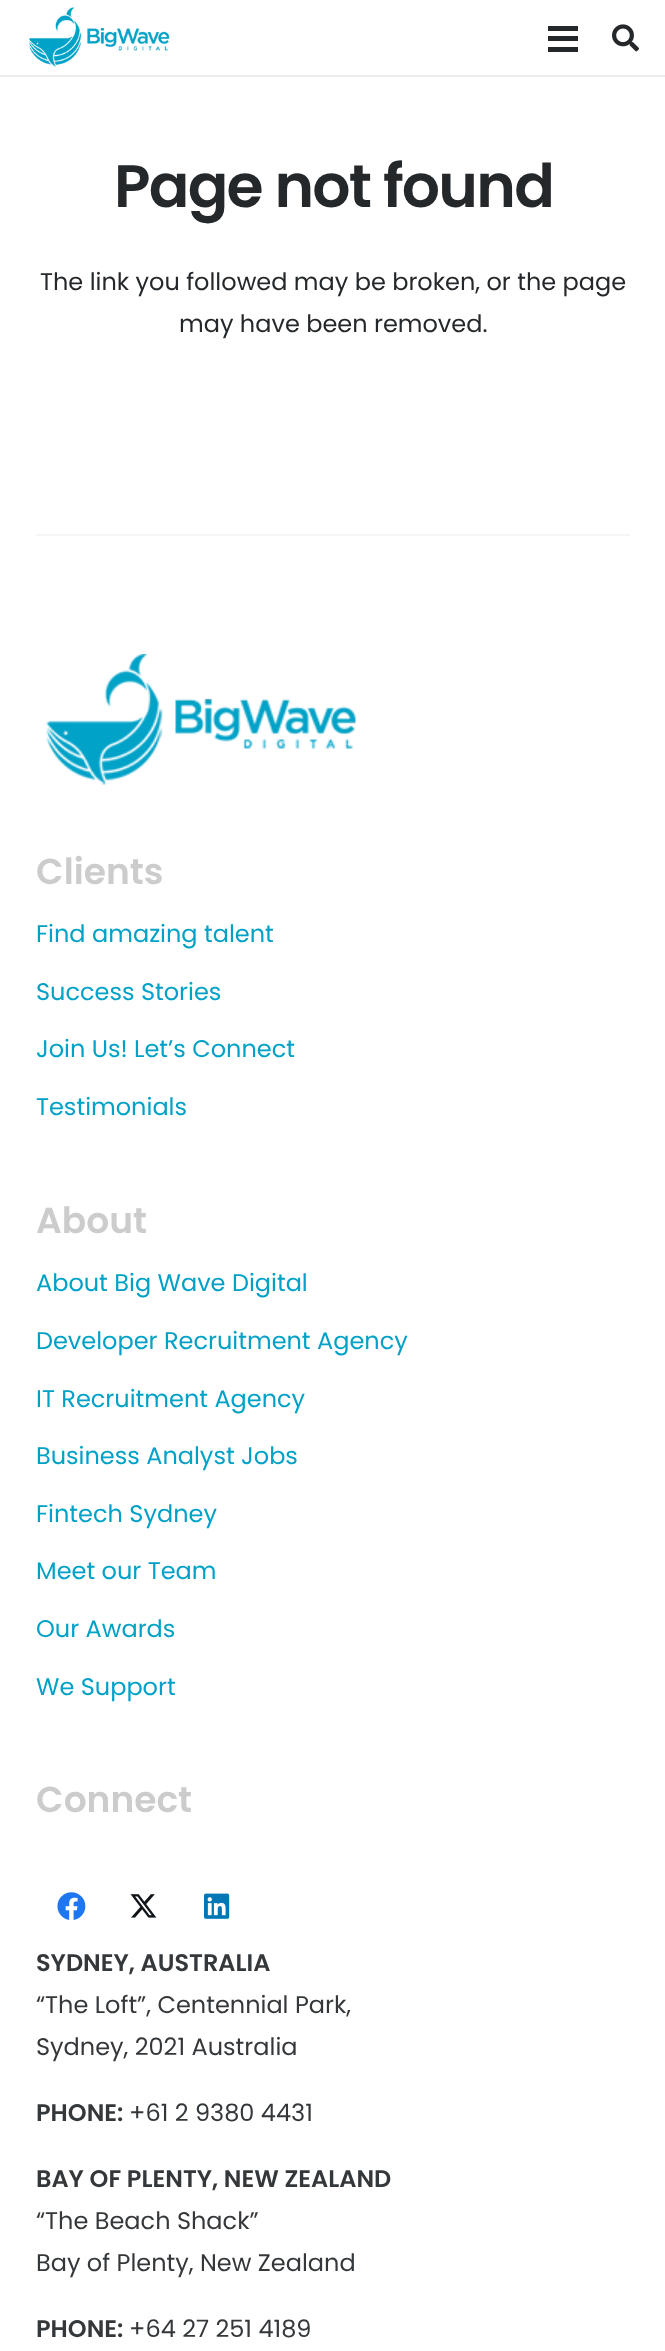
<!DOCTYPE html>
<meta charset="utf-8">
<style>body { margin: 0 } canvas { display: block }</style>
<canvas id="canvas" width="665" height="2351"></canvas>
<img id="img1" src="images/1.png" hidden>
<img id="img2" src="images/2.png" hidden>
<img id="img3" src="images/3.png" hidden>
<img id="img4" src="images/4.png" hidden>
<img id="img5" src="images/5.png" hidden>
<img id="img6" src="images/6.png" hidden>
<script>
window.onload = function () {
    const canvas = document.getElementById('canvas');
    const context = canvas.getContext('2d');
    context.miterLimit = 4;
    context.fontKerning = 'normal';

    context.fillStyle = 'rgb(255, 255, 255)';
    context.fillRect(0, 0, 665, 2351);
    context.fillStyle = 'rgb(235, 235, 235)';
    context.fillRect(0, 75, 665, 2);
    context.drawImage(document.getElementById('img1'), 29, 7, 141, 60);
    context.fillStyle = 'rgb(37, 40, 43)';
    context.fillRect(548, 36, 30, 5);
    context.fillRect(548, 26, 30, 5);
    context.fillRect(548, 47, 30, 5);
    context.drawImage(document.getElementById('img2'), 612, 24, 27, 28);
    context.fillStyle = 'rgb(245, 245, 245)';
    context.fillRect(36, 534, 594, 2);
    context.drawImage(document.getElementById('img3'), 46, 654, 310, 131);
    context.drawImage(document.getElementById('img4'), 57, 1892, 29, 28);
    context.drawImage(document.getElementById('img5'), 130, 1894, 27, 24);
    context.drawImage(document.getElementById('img6'), 204, 1893, 26, 26);
    context.letterSpacing = '-1.75px';
    context.font = '600 60px Poppins';
    context.fillStyle = 'rgb(37, 40, 43)';
    context.fillText('Page not found', 114, 207);
    context.letterSpacing = '0px';
    context.font = '24px Poppins';
    context.fillText('The link you followed may be broken, or the page', 40, 290);
    context.fillText('may have been removed.', 179, 332);
    context.font = '600 36px Poppins';
    context.fillStyle = 'rgb(204, 204, 204)';
    context.fillText('Clients', 36, 884);
    context.font = '24px Poppins';
    context.fillStyle = 'rgb(0, 161, 199)';
    context.fillText('Find amazing talent', 36, 942);
    context.fillText('Success Stories', 36, 1000);
    context.fillText('Join Us! Let’s Connect', 36, 1057);
    context.fillText('Testimonials', 36, 1115);
    context.font = '600 36px Poppins';
    context.fillStyle = 'rgb(204, 204, 204)';
    context.fillText('About', 36, 1233);
    context.font = '24px Poppins';
    context.fillStyle = 'rgb(0, 161, 199)';
    context.fillText('About Big Wave Digital', 36, 1291);
    context.fillText('Developer Recruitment Agency', 36, 1349);
    context.fillText('IT Recruitment Agency', 36, 1407);
    context.fillText('Business Analyst Jobs', 36, 1464);
    context.fillText('Fintech Sydney', 36, 1522);
    context.fillText('Meet our Team', 36, 1579);
    context.fillText('Our Awards', 36, 1637);
    context.fillText('We Support', 36, 1695);
    context.font = '600 36px Poppins';
    context.fillStyle = 'rgb(204, 204, 204)';
    context.fillText('Connect', 36, 1812);
    context.font = '600 24px Poppins';
    context.fillStyle = 'rgb(53, 56, 59)';
    context.fillText('SYDNEY, AUSTRALIA', 36, 1971);
    context.font = '24px Poppins';
    context.fillText('“The Loft”, Centennial Park,', 36, 2013);
    context.fillText('Sydney, 2021 Australia', 36, 2055);
    context.font = '600 24px Poppins';
    context.fillText('PHONE:', 36, 2121);
    context.font = '24px Poppins';
    context.fillText('+61 2 9380 4431', 129, 2121);
    context.font = '600 24px Poppins';
    context.fillText('BAY OF PLENTY, NEW ZEALAND', 36, 2187);
    context.font = '24px Poppins';
    context.fillText('“The Beach Shack”', 36, 2229);
    context.fillText('Bay of Plenty, New Zealand', 36, 2271);
    context.font = '600 24px Poppins';
    context.fillText('PHONE:', 36, 2337);
    context.font = '24px Poppins';
    context.fillText('+64 27 251 4189', 129, 2337);
};
</script>
